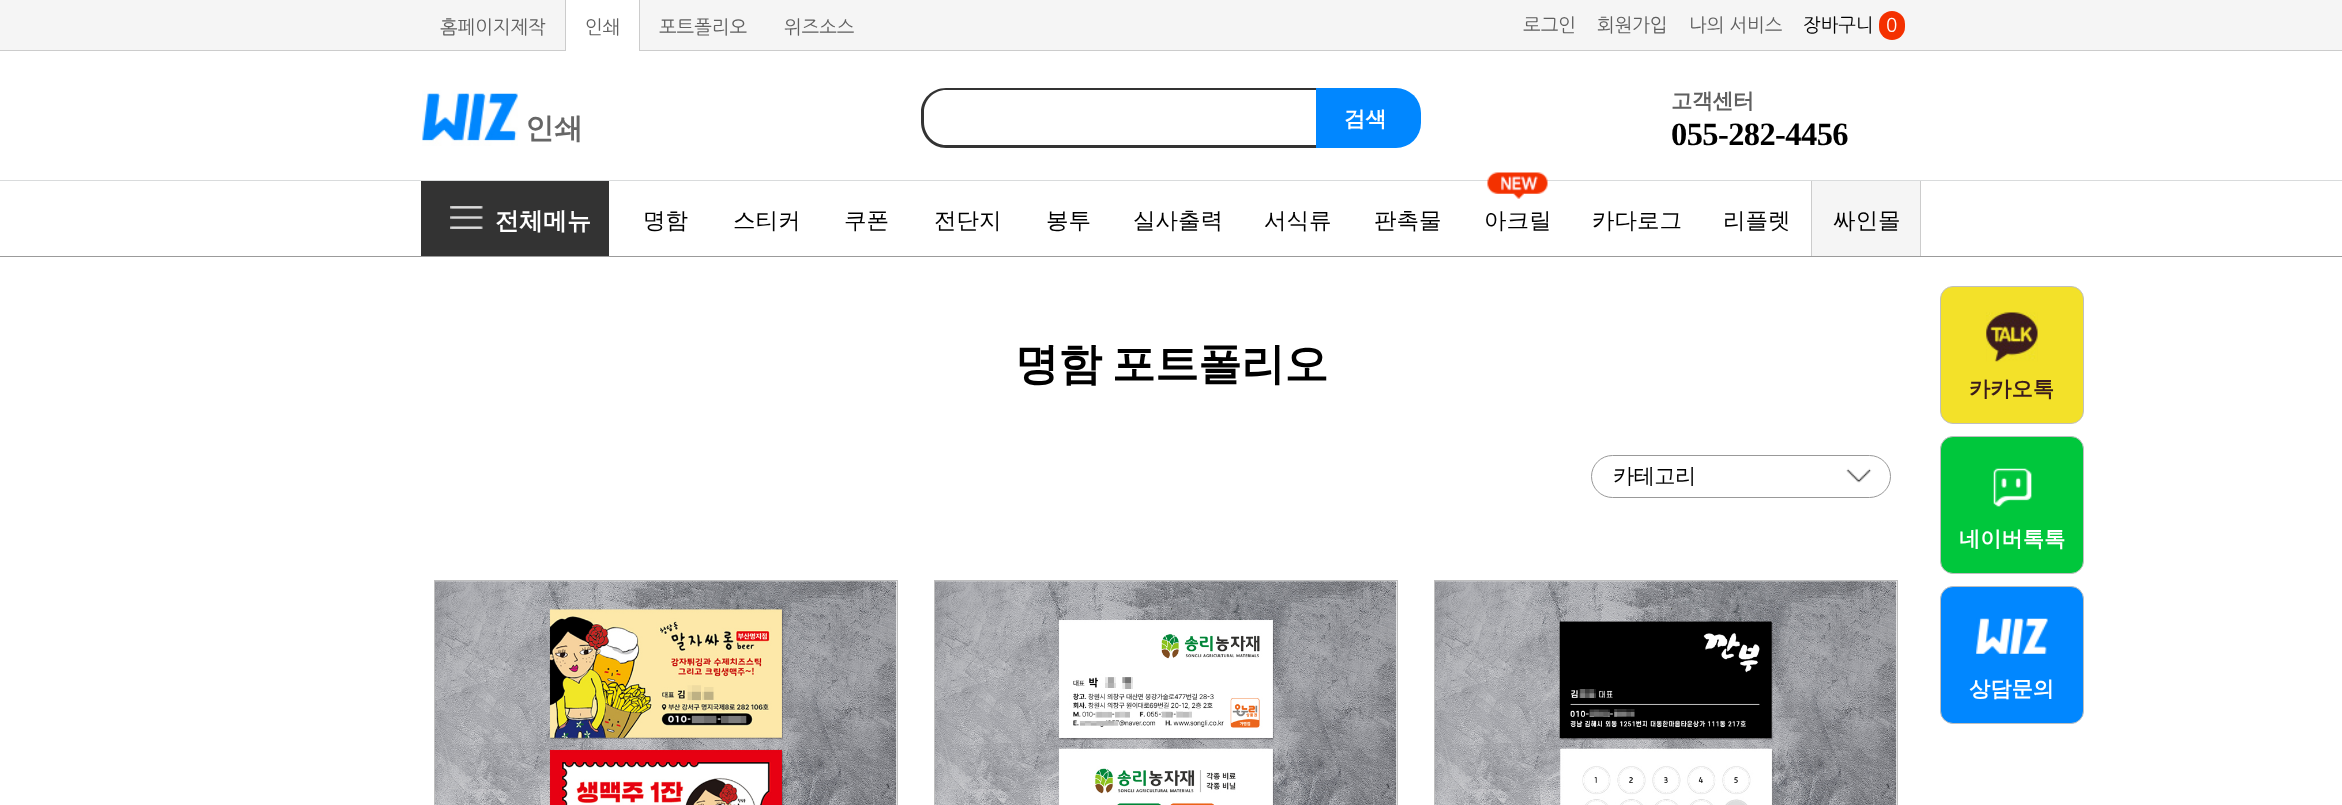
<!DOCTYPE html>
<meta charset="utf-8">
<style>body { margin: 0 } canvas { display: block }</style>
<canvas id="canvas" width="2342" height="805"></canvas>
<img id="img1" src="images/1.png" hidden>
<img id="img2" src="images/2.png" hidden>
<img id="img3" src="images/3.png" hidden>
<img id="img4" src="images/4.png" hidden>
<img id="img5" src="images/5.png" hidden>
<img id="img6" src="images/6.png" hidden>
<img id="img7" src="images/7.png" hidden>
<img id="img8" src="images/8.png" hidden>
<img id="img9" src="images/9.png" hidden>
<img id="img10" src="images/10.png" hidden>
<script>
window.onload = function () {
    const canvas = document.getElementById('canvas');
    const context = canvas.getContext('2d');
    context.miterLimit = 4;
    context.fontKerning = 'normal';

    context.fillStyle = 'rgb(255, 255, 255)';
    context.fillRect(0, 0, 2342, 805);
    context.fillStyle = 'rgb(245, 245, 245)';
    context.fillRect(0, 0, 2342, 50);
    context.fillStyle = 'rgb(204, 204, 204)';
    context.fillRect(0, 50, 2342, 1);
    context.fillStyle = 'rgb(255, 255, 255)';
    context.fillRect(566, 0, 73, 51);
    context.fillStyle = 'rgb(204, 204, 204)';
    context.fillRect(639, 0, 1, 51);
    context.fillRect(565, 0, 1, 51);
    context.fillStyle = 'rgb(244, 49, 0)';
    context.beginPath();
    context.roundRect(1879, 11, 26, 29, 13);
    context.fill();
    context.drawImage(document.getElementById('img1'), 422, 90, 96, 56);
    context.fillStyle = 'rgb(1, 135, 255)';
    context.beginPath();
    context.roundRect(1295, 88, 126, 60, [0, 25, 25, 0]);
    context.fill();
    context.fillStyle = 'rgb(255, 255, 255)';
    context.beginPath();
    context.roundRect(924, 90, 392, 55, [23, 0, 0, 23]);
    context.fill();
    context.fillStyle = 'rgb(51, 51, 51)';
    context.beginPath();
    context.moveTo(946, 88);
    context.lineTo(1316, 88);
    context.lineTo(1316, 148);
    context.lineTo(946, 148);
    context.bezierCurveTo(932, 148, 921, 136, 921, 122);
    context.lineTo(921, 112);
    context.bezierCurveTo(921, 99, 932, 88, 946, 88);
    context.closePath();
    context.moveTo(946, 90);
    context.lineTo(1316, 90);
    context.lineTo(1316, 145);
    context.lineTo(946, 145);
    context.bezierCurveTo(934, 145, 924, 135, 924, 122);
    context.lineTo(924, 112);
    context.bezierCurveTo(924, 100, 934, 90, 946, 90);
    context.closePath();
    context.fill('evenodd');
    context.fillStyle = 'rgb(217, 219, 220)';
    context.fillRect(0, 180, 2342, 1);
    context.fillStyle = 'rgb(155, 155, 155)';
    context.fillRect(0, 256, 2342, 1);
    context.fillStyle = 'rgb(51, 51, 51)';
    context.fillRect(421, 181, 188, 75);
    context.drawImage(document.getElementById('img2'), 450, 206, 33, 23);
    context.drawImage(document.getElementById('img3'), 1487, 172, 61, 27);
    context.fillStyle = 'rgb(245, 245, 245)';
    context.fillRect(1812, 181, 108, 75);
    context.fillStyle = 'rgb(204, 204, 204)';
    context.fillRect(1920, 181, 1, 75);
    context.fillRect(1811, 181, 1, 75);
    context.drawImage(document.getElementById('img4'), 1846, 468, 26, 15);
    context.beginPath();
    context.roundRect(1591.5, 455.5, 299, 42, 21);
    context.strokeStyle = 'rgb(153, 153, 153)';
    context.stroke();
    context.strokeStyle = 'rgb(191, 191, 191)';
    context.strokeRect(434.5, 580.5, 463, 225);
    context.drawImage(document.getElementById('img5'), 435, 581, 462, 224);
    context.strokeRect(934.5, 580.5, 463, 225);
    context.drawImage(document.getElementById('img6'), 935, 581, 462, 224);
    context.strokeRect(1434.5, 580.5, 463, 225);
    context.drawImage(document.getElementById('img7'), 1435, 581, 462, 224);
    context.fillStyle = 'rgb(243, 225, 41)';
    context.beginPath();
    context.roundRect(1940.5, 286.5, 143, 137, 12.5);
    context.fill();
    context.stroke();
    context.drawImage(document.getElementById('img8'), 1986, 312, 52, 50);
    context.fillStyle = 'rgb(0, 199, 60)';
    context.beginPath();
    context.roundRect(1940.5, 436.5, 143, 137, 12.5);
    context.fill();
    context.stroke();
    context.drawImage(document.getElementById('img9'), 1993, 468, 39, 39);
    context.fillStyle = 'rgb(1, 135, 255)';
    context.beginPath();
    context.roundRect(1940.5, 586.5, 143, 137, 12.5);
    context.fill();
    context.stroke();
    context.drawImage(document.getElementById('img10'), 1976, 618, 72, 36);
    context.font = '18.75px NanumGothic';
    context.fillStyle = 'rgb(96, 96, 96)';
    context.fillText('홈페이지제작', 440, 33);
    context.fillText('인쇄', 585, 33);
    context.fillText('포트폴리오', 659, 33);
    context.fillText('위즈소스', 784, 33);
    context.fillText('로그인', 1523, 31);
    context.fillText('회원가입', 1597, 31);
    context.fillText('나의 서비스', 1689, 31);
    context.fillStyle = 'rgb(0, 0, 0)';
    context.fillText('장바구니', 1803, 31);
    context.fillStyle = 'rgb(255, 255, 255)';
    context.fillText('0', 1886, 31);
    context.font = 'bold 29px WenQuanYi Zen Hei';
    context.fillStyle = 'rgb(102, 102, 102)';
    context.fillText('인쇄', 525, 138);
    context.font = 'bold 21.25px WenQuanYi Zen Hei';
    context.fillStyle = 'rgb(255, 255, 255)';
    context.fillText('검색', 1344, 126);
    context.letterSpacing = '-0.6px';
    context.fillStyle = 'rgb(96, 96, 96)';
    context.fillText('고객센터', 1671, 108);
    context.font = 'bold 32.5px Liberation Serif';
    context.fillStyle = 'rgb(0, 0, 0)';
    context.fillText('055-282-4456', 1671, 145);
    context.letterSpacing = '0px';
    context.font = 'bold 24px WenQuanYi Zen Hei';
    context.fillStyle = 'rgb(255, 255, 255)';
    context.fillText('전체메뉴', 495, 229);
    context.font = '500 22.5px WenQuanYi Zen Hei';
    context.fillStyle = 'rgb(0, 0, 0)';
    context.fillText('명함', 643, 228);
    context.fillText('스티커', 733, 228);
    context.fillText('쿠폰', 844, 228);
    context.fillText('전단지', 934, 228);
    context.fillText('봉투', 1046, 228);
    context.fillText('실사출력', 1133, 228);
    context.fillText('서식류', 1264, 228);
    context.fillText('판촉물', 1374, 228);
    context.fillText('아크릴', 1484, 228);
    context.fillText('카다로그', 1592, 228);
    context.fillText('리플렛', 1723, 228);
    context.fillText('싸인몰', 1833, 228);
    context.letterSpacing = '-0.6px';
    context.wordSpacing = '-2px';
    context.font = 'bold 43.75px WenQuanYi Zen Hei';
    context.fillText('명함 포트폴리오', 1015, 379);
    context.wordSpacing = '0px';
    context.font = '500 21.25px WenQuanYi Zen Hei';
    context.fillText('카테고리', 1613, 483);
    context.letterSpacing = '0px';
    context.font = 'bold 21.25px WenQuanYi Zen Hei';
    context.fillStyle = 'rgb(57, 27, 29)';
    context.fillText('카카오톡', 1969, 396);
    context.fillStyle = 'rgb(255, 255, 255)';
    context.fillText('네이버톡톡', 1959, 546);
    context.fillText('상담문의', 1969, 696);
};
</script>
